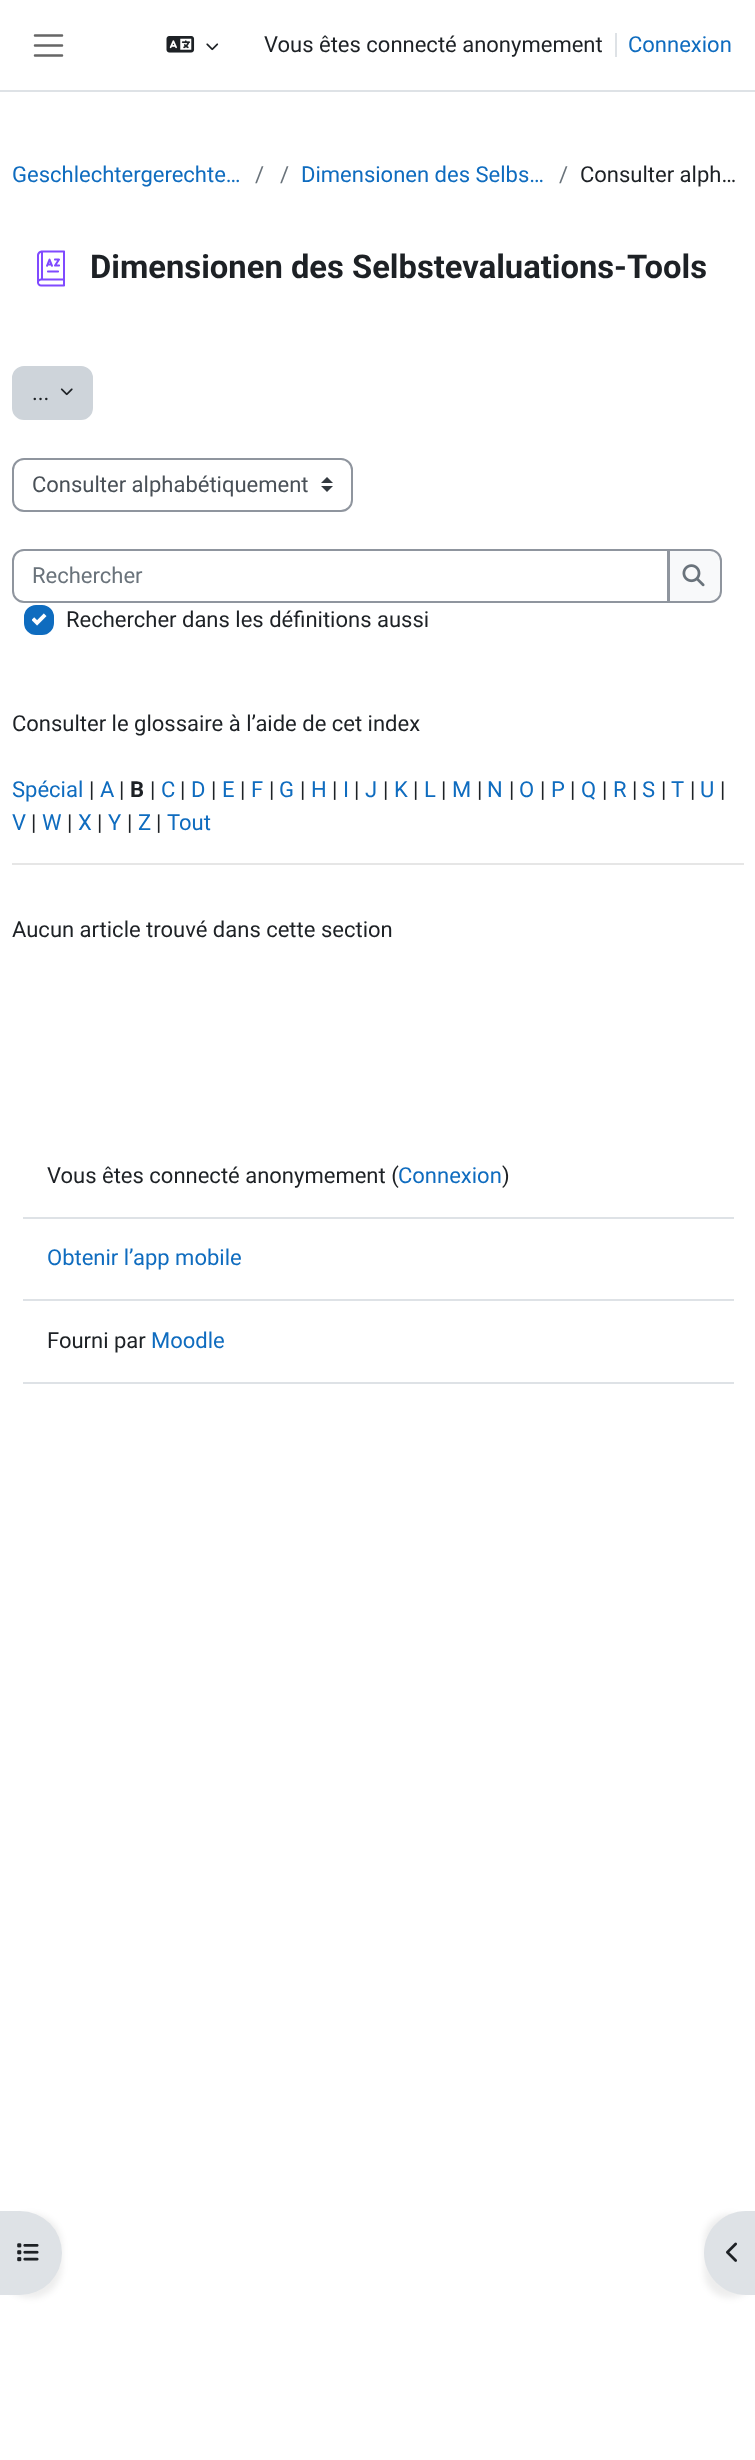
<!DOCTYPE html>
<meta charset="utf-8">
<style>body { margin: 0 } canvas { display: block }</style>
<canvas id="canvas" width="755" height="2460"></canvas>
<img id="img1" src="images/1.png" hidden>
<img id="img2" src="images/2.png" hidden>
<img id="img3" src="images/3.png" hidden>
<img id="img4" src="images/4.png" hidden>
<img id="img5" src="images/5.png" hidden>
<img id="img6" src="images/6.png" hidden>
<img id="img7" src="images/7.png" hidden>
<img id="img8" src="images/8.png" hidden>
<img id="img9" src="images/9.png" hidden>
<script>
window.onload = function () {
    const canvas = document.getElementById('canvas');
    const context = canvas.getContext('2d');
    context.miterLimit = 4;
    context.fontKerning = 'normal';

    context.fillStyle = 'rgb(255, 255, 255)';
    context.fillRect(0, 0, 755, 2460);
    context.fillStyle = 'rgb(222, 226, 230)';
    context.fillRect(0, 90, 755, 2);
    context.beginPath();
    context.moveTo(35, 35.5);
    context.lineTo(62, 35.5);
    context.moveTo(35, 45.5);
    context.lineTo(62, 45.5);
    context.moveTo(35, 55.5);
    context.lineTo(62, 55.5);
    context.strokeStyle = 'rgb(102, 102, 102)';
    context.lineWidth = 2.5;
    context.lineCap = 'round';
    context.stroke();
    context.drawImage(document.getElementById('img1'), 166, 36, 29, 17);
    context.drawImage(document.getElementById('img2'), 206, 43, 13, 8);
    context.fillRect(615, 33, 2, 24);
    context.drawImage(document.getElementById('img3'), 37, 250, 28, 37);
    context.fillStyle = 'rgb(206, 212, 218)';
    context.beginPath();
    context.roundRect(13, 367, 79, 52, 11);
    context.fill();
    context.strokeStyle = 'rgb(206, 212, 218)';
    context.lineWidth = 2;
    context.stroke();
    context.drawImage(document.getElementById('img4'), 60, 388, 13, 8);
    context.drawImage(document.getElementById('img5'), 321, 477, 12, 15);
    context.beginPath();
    context.roundRect(13, 459, 339, 52, 11);
    context.strokeStyle = 'rgb(143, 149, 158)';
    context.stroke();
    context.beginPath();
    context.roundRect(13, 550, 655, 52, [11, 0, 0, 11]);
    context.stroke();
    context.fillStyle = 'rgb(248, 249, 250)';
    context.beginPath();
    context.roundRect(669, 550, 52, 52, [0, 11, 11, 0]);
    context.fill();
    context.stroke();
    context.drawImage(document.getElementById('img6'), 682, 564, 23, 23);
    context.fillStyle = 'rgb(15, 108, 191)';
    context.beginPath();
    context.roundRect(25, 606, 28, 28, 11);
    context.fill();
    context.strokeStyle = 'rgb(15, 108, 191)';
    context.stroke();
    context.drawImage(document.getElementById('img7'), 32, 613, 15, 13);
    context.fillStyle = 'rgb(230, 230, 230)';
    context.fillRect(12, 863, 732, 2);
    context.fillStyle = 'rgba(0, 0, 0, 0.07)';
    context.filter = 'blur(3px)';
    context.beginPath();
    context.roundRect(0, 2214, 62, 84, 42);
    context.fill();
    context.filter = 'none';
    context.fillStyle = 'rgb(222, 226, 230)';
    context.beginPath();
    context.roundRect(0, 2211, 62, 84, [0, 42, 42, 0]);
    context.fill();
    context.drawImage(document.getElementById('img8'), 17, 2243, 22, 19);
    context.fillStyle = 'rgba(0, 0, 0, 0.07)';
    context.filter = 'blur(3px)';
    context.beginPath();
    context.roundRect(704, 2214, 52, 84, 42);
    context.fill();
    context.filter = 'none';
    context.fillStyle = 'rgb(222, 226, 230)';
    context.beginPath();
    context.moveTo(746, 2211);
    context.lineTo(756, 2211);
    context.lineTo(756, 2295);
    context.lineTo(746, 2295);
    context.bezierCurveTo(723, 2295, 704, 2276, 704, 2253);
    context.bezierCurveTo(704, 2230, 723, 2211, 746, 2211);
    context.closePath();
    context.fill();
    context.drawImage(document.getElementById('img9'), 726, 2242, 11, 20);
    context.fillRect(23, 1217, 711, 2);
    context.fillRect(23, 1299, 711, 2);
    context.fillRect(23, 1382, 711, 2);
    context.font = '22px Roboto';
    context.fillStyle = 'rgb(29, 33, 37)';
    context.fillText('Vous êtes connecté anonymement', 264, 52);
    context.fillStyle = 'rgb(15, 108, 191)';
    context.fillText('Connexion', 628, 52);
    context.fillText('Geschlechtergerechte…', 12, 182);
    context.fillStyle = 'rgb(106, 115, 123)';
    context.fillText('/', 255, 182);
    context.fillText('/', 280, 182);
    context.fillStyle = 'rgb(15, 108, 191)';
    context.fillText('Dimensionen des Selbs…', 301, 182);
    context.fillStyle = 'rgb(106, 115, 123)';
    context.fillText('/', 559, 182);
    context.fillStyle = 'rgb(29, 33, 37)';
    context.fillText('Consulter alph…', 580, 182);
    context.font = 'bold 32.75px Roboto';
    context.fillText('Dimensionen des Selbstevaluations-Tools', 90, 278);
    context.font = '22px Roboto';
    context.fillText('...', 32, 400);
    context.fillStyle = 'rgb(73, 80, 87)';
    context.fillText('Consulter alphabétiquement', 32, 492);
    context.fillStyle = 'rgb(106, 115, 123)';
    context.fillText('Rechercher', 32, 583);
    context.fillStyle = 'rgb(29, 33, 37)';
    context.fillText('Rechercher dans les définitions aussi', 66, 627);
    context.fillText('Consulter le glossaire à l’aide de cet index', 12, 731);
    context.fillStyle = 'rgb(15, 108, 191)';
    context.fillText('Spécial', 12, 797);
    context.fillStyle = 'rgb(29, 33, 37)';
    context.fillText('|', 89, 797);
    context.fillStyle = 'rgb(15, 108, 191)';
    context.fillText('A', 100, 797);
    context.fillStyle = 'rgb(29, 33, 37)';
    context.fillText('|', 119, 797);
    context.font = 'bold 22px Roboto';
    context.fillText('B', 130, 797);
    context.font = '22px Roboto';
    context.fillText('|', 150, 797);
    context.fillStyle = 'rgb(15, 108, 191)';
    context.fillText('C', 161, 797);
    context.fillStyle = 'rgb(29, 33, 37)';
    context.fillText('|', 180, 797);
    context.fillStyle = 'rgb(15, 108, 191)';
    context.fillText('D', 191, 797);
    context.fillStyle = 'rgb(29, 33, 37)';
    context.fillText('|', 211, 797);
    context.fillStyle = 'rgb(15, 108, 191)';
    context.fillText('E', 222, 797);
    context.fillStyle = 'rgb(29, 33, 37)';
    context.fillText('|', 240, 797);
    context.fillStyle = 'rgb(15, 108, 191)';
    context.fillText('F', 251, 797);
    context.fillStyle = 'rgb(29, 33, 37)';
    context.fillText('|', 269, 797);
    context.fillStyle = 'rgb(15, 108, 191)';
    context.fillText('G', 279, 797);
    context.fillStyle = 'rgb(29, 33, 37)';
    context.fillText('|', 300, 797);
    context.fillStyle = 'rgb(15, 108, 191)';
    context.fillText('H', 311, 797);
    context.fillStyle = 'rgb(29, 33, 37)';
    context.fillText('|', 332, 797);
    context.fillStyle = 'rgb(15, 108, 191)';
    context.fillText('I', 343, 797);
    context.fillStyle = 'rgb(29, 33, 37)';
    context.fillText('|', 354, 797);
    context.fillStyle = 'rgb(15, 108, 191)';
    context.fillText('J', 365, 797);
    context.fillStyle = 'rgb(29, 33, 37)';
    context.fillText('|', 383, 797);
    context.fillStyle = 'rgb(15, 108, 191)';
    context.fillText('K', 394, 797);
    context.fillStyle = 'rgb(29, 33, 37)';
    context.fillText('|', 413, 797);
    context.fillStyle = 'rgb(15, 108, 191)';
    context.fillText('L', 424, 797);
    context.fillStyle = 'rgb(29, 33, 37)';
    context.fillText('|', 441, 797);
    context.fillStyle = 'rgb(15, 108, 191)';
    context.fillText('M', 452, 797);
    context.fillStyle = 'rgb(29, 33, 37)';
    context.fillText('|', 477, 797);
    context.fillStyle = 'rgb(15, 108, 191)';
    context.fillText('N', 487, 797);
    context.fillStyle = 'rgb(29, 33, 37)';
    context.fillText('|', 509, 797);
    context.fillStyle = 'rgb(15, 108, 191)';
    context.fillText('O', 519, 797);
    context.fillStyle = 'rgb(29, 33, 37)';
    context.fillText('|', 540, 797);
    context.fillStyle = 'rgb(15, 108, 191)';
    context.fillText('P', 551, 797);
    context.fillStyle = 'rgb(29, 33, 37)';
    context.fillText('|', 570, 797);
    context.fillStyle = 'rgb(15, 108, 191)';
    context.fillText('Q', 581, 797);
    context.fillStyle = 'rgb(29, 33, 37)';
    context.fillText('|', 602, 797);
    context.fillStyle = 'rgb(15, 108, 191)';
    context.fillText('R', 613, 797);
    context.fillStyle = 'rgb(29, 33, 37)';
    context.fillText('|', 632, 797);
    context.fillStyle = 'rgb(15, 108, 191)';
    context.fillText('S', 642, 797);
    context.fillStyle = 'rgb(29, 33, 37)';
    context.fillText('|', 661, 797);
    context.fillStyle = 'rgb(15, 108, 191)';
    context.fillText('T', 671, 797);
    context.fillStyle = 'rgb(29, 33, 37)';
    context.fillText('|', 690, 797);
    context.fillStyle = 'rgb(15, 108, 191)';
    context.fillText('U', 700, 797);
    context.fillStyle = 'rgb(29, 33, 37)';
    context.fillText('|', 720, 797);
    context.fillStyle = 'rgb(15, 108, 191)';
    context.fillText('V', 12, 830);
    context.fillStyle = 'rgb(29, 33, 37)';
    context.fillText('|', 31, 830);
    context.fillStyle = 'rgb(15, 108, 191)';
    context.fillText('W', 42, 830);
    context.fillStyle = 'rgb(29, 33, 37)';
    context.fillText('|', 67, 830);
    context.fillStyle = 'rgb(15, 108, 191)';
    context.fillText('X', 78, 830);
    context.fillStyle = 'rgb(29, 33, 37)';
    context.fillText('|', 97, 830);
    context.fillStyle = 'rgb(15, 108, 191)';
    context.fillText('Y', 108, 830);
    context.fillStyle = 'rgb(29, 33, 37)';
    context.fillText('|', 127, 830);
    context.fillStyle = 'rgb(15, 108, 191)';
    context.fillText('Z', 138, 830);
    context.fillStyle = 'rgb(29, 33, 37)';
    context.fillText('|', 156, 830);
    context.fillStyle = 'rgb(15, 108, 191)';
    context.fillText('Tout', 167, 830);
    context.fillStyle = 'rgb(29, 33, 37)';
    context.fillText('Aucun article trouvé dans cette section', 12, 937);
    context.fillText('Vous êtes connecté anonymement (', 47, 1183);
    context.fillStyle = 'rgb(15, 108, 191)';
    context.fillText('Connexion', 398, 1183);
    context.fillStyle = 'rgb(29, 33, 37)';
    context.fillText(')', 502, 1183);
    context.fillStyle = 'rgb(15, 108, 191)';
    context.fillText('Obtenir l’app mobile', 47, 1265);
    context.fillStyle = 'rgb(29, 33, 37)';
    context.fillText('Fourni par', 47, 1348);
    context.fillStyle = 'rgb(15, 108, 191)';
    context.fillText('Moodle', 151, 1348);
};
</script>
